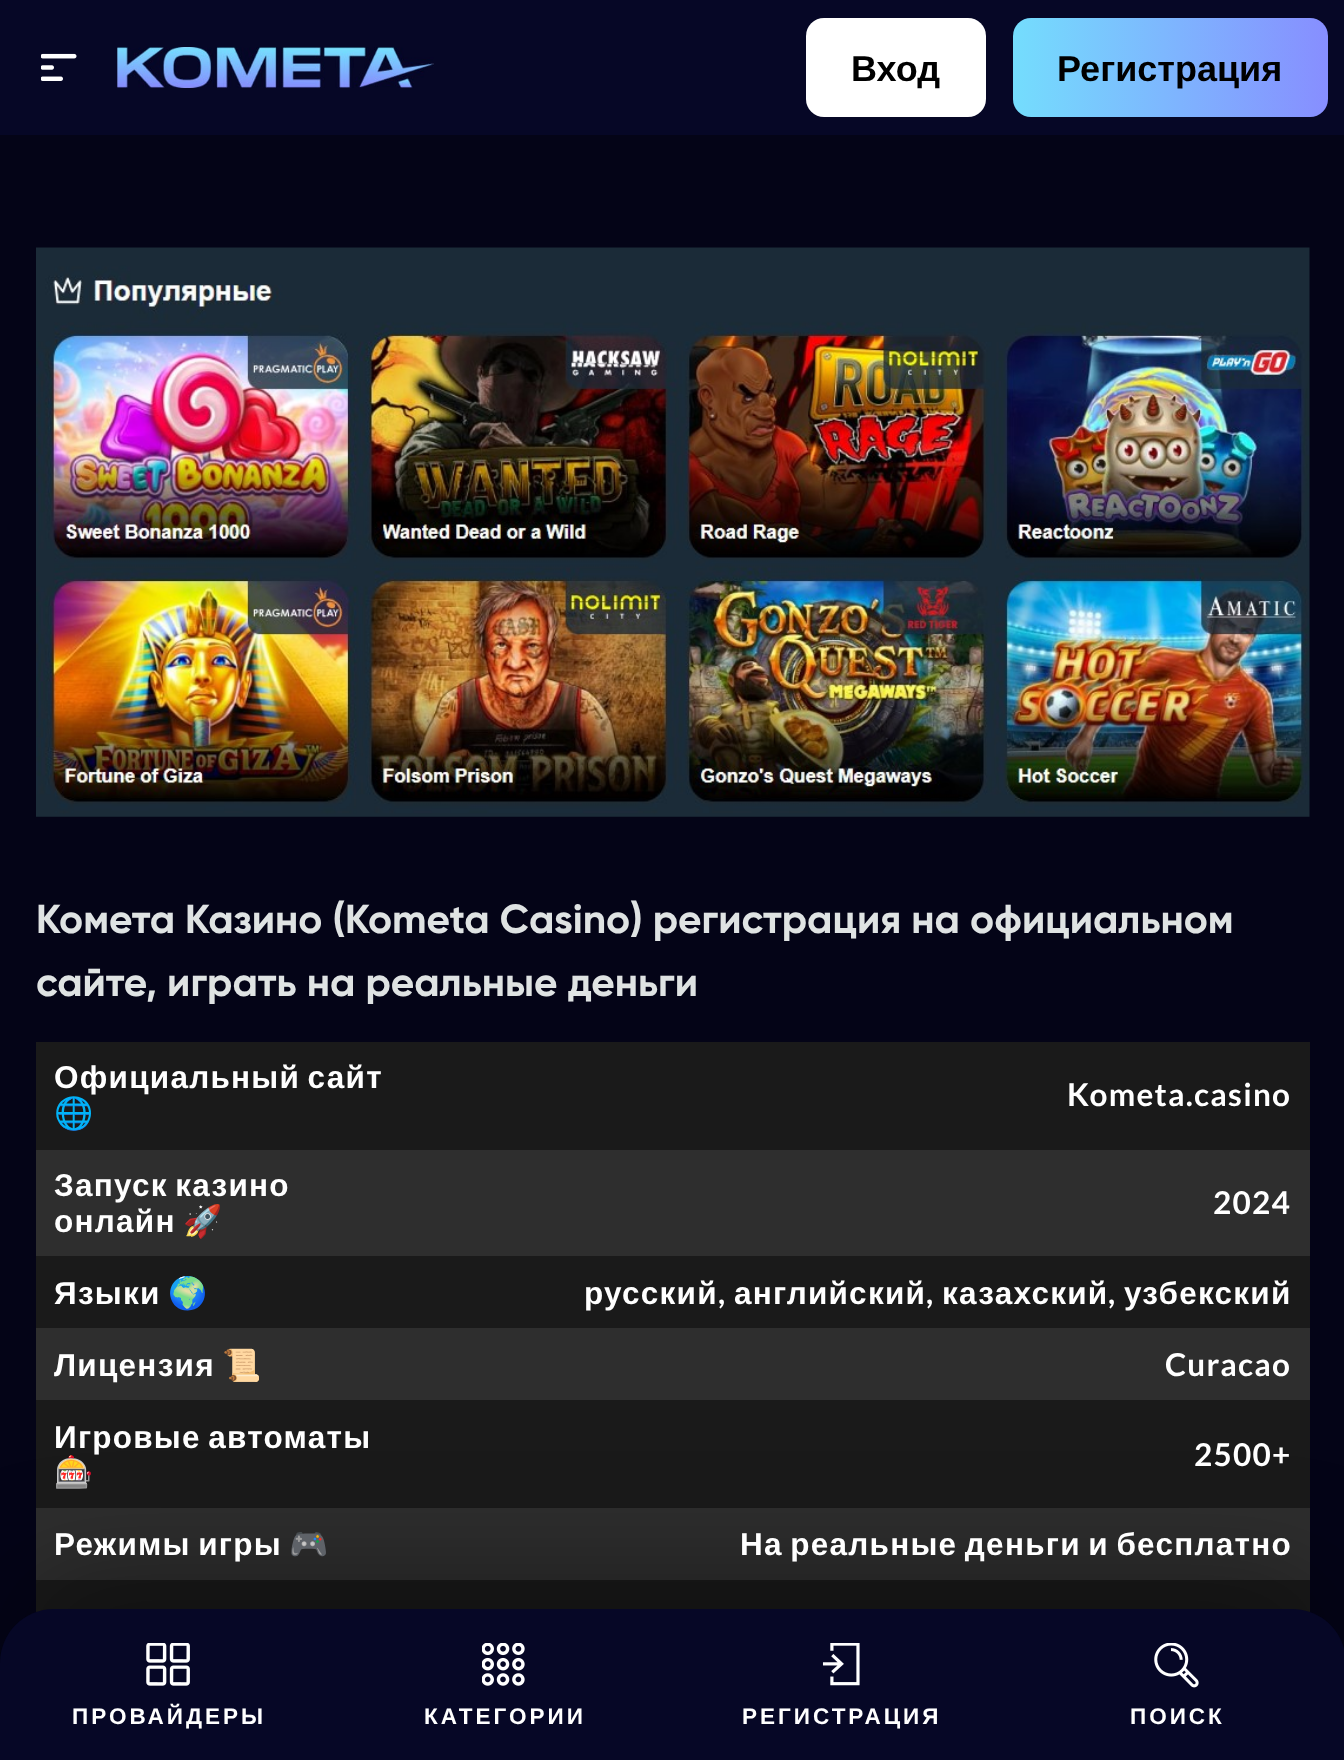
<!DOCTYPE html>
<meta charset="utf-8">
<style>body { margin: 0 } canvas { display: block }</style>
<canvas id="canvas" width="1344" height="1760"></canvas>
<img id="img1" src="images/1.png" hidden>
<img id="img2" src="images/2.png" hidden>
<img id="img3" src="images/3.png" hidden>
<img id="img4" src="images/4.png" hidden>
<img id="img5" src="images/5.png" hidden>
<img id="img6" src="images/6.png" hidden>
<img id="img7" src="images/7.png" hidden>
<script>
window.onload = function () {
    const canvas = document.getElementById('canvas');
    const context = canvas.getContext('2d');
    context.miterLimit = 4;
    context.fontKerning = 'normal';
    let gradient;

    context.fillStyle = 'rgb(4, 4, 23)';
    context.fillRect(0, 0, 1344, 1760);
    context.fillStyle = 'rgb(6, 7, 38)';
    context.fillRect(0, 0, 1344, 135);
    context.drawImage(document.getElementById('img1'), 41, 53, 36, 28);
    context.drawImage(document.getElementById('img2'), 117, 47, 317, 41);
    context.fillStyle = 'rgb(255, 255, 255)';
    context.beginPath();
    context.roundRect(806, 18, 180, 99, 18);
    context.fill();
    gradient = context.createLinearGradient(1013, 68, 1328, 67);
    gradient.addColorStop(0, 'rgb(116, 221, 253)');
    gradient.addColorStop(1, 'rgb(135, 142, 255)');
    context.fillStyle = gradient;
    context.beginPath();
    context.roundRect(1013, 18, 315, 99, 18);
    context.fill();
    context.drawImage(document.getElementById('img3'), 36, 247, 1274, 570);
    context.fillStyle = 'rgb(26, 26, 26)';
    context.fillRect(36, 1042, 1274, 108);
    context.fillStyle = 'rgb(46, 46, 46)';
    context.fillRect(36, 1150, 1274, 106);
    context.fillStyle = 'rgb(26, 26, 26)';
    context.fillRect(36, 1256, 1274, 72);
    context.fillStyle = 'rgb(46, 46, 46)';
    context.fillRect(36, 1328, 1274, 72);
    context.fillStyle = 'rgb(26, 26, 26)';
    context.fillRect(36, 1400, 1274, 108);
    context.fillStyle = 'rgb(46, 46, 46)';
    context.fillRect(36, 1508, 1274, 72);
    context.fillStyle = 'rgb(26, 26, 26)';
    context.fillRect(36, 1580, 1274, 33);
    context.fillStyle = 'rgba(0, 0, 0, 0.4)';
    context.filter = 'blur(58.5px)';
    context.beginPath();
    context.roundRect(20, 1582, 1310, 117, 36);
    context.fill();
    context.filter = 'none';
    context.fillStyle = 'rgb(6, 7, 38)';
    context.beginPath();
    context.moveTo(54, 1609);
    context.lineTo(1292, 1609);
    context.bezierCurveTo(1322, 1609, 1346, 1633, 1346, 1663);
    context.lineTo(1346, 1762);
    context.lineTo(0, 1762);
    context.lineTo(0, 1663);
    context.bezierCurveTo(0, 1633, 24, 1609, 54, 1609);
    context.closePath();
    context.fill();
    context.drawImage(document.getElementById('img4'), 146, 1643, 44, 43);
    context.drawImage(document.getElementById('img5'), 482, 1643, 43, 43);
    context.drawImage(document.getElementById('img6'), 822, 1643, 38, 43);
    context.drawImage(document.getElementById('img7'), 1154, 1643, 45, 45);
    context.font = 'bold 36px Liberation Sans';
    context.fillStyle = 'rgb(0, 0, 0)';
    context.fillText('Вход', 851, 81);
    context.fillText('Регистрация', 1057, 81);
    context.font = 'bold 40.5px Gilroy';
    context.fillStyle = 'rgb(223, 227, 227)';
    context.fillText('Комета Казино (Kometa Casino) регистрация на официальном', 36, 933);
    context.fillText('сайте, играть на реальные деньги', 36, 996);
    context.letterSpacing = '1.25px';
    context.wordSpacing = '-2.5px';
    context.font = 'bold 31.5px Liberation Sans';
    context.fillStyle = 'rgb(255, 255, 255)';
    context.fillText('Официальный сайт', 54, 1088);
    context.wordSpacing = '0px';
    context.font = 'bold 31.5px Noto Color Emoji';
    context.fillText('🌐', 54, 1124);
    context.font = 'bold 31.5px Lato';
    context.fillText('Kometa.casino', 1067, 1106);
    context.wordSpacing = '-2.5px';
    context.font = 'bold 31.5px Liberation Sans';
    context.fillText('Запуск казино', 54, 1196);
    context.wordSpacing = '0px';
    context.fillText('онлайн', 54, 1232);
    context.font = 'bold 31.5px Noto Color Emoji';
    context.fillText('🚀', 183, 1232);
    context.font = 'bold 31.5px Lato';
    context.fillText('2024', 1213, 1214);
    context.font = 'bold 31.5px Liberation Sans';
    context.fillText('Языки', 54, 1304);
    context.font = 'bold 31.5px Noto Color Emoji';
    context.fillText('🌍', 168, 1304);
    context.font = 'bold 31.5px Liberation Sans';
    context.fillText('русский', 584, 1304);
    context.font = 'bold 31.5px Lato';
    context.fillText(',', 718, 1304);
    context.font = 'bold 31.5px Liberation Sans';
    context.fillText('английский', 734, 1304);
    context.font = 'bold 31.5px Lato';
    context.fillText(',', 926, 1304);
    context.font = 'bold 31.5px Liberation Sans';
    context.fillText('казахский', 942, 1304);
    context.font = 'bold 31.5px Lato';
    context.fillText(',', 1108, 1304);
    context.font = 'bold 31.5px Liberation Sans';
    context.fillText('узбекский', 1124, 1304);
    context.fillText('Лицензия', 54, 1376);
    context.font = 'bold 31.5px Noto Color Emoji';
    context.fillText('📜', 222, 1376);
    context.font = 'bold 31.5px Lato';
    context.fillText('Curacao', 1165, 1376);
    context.wordSpacing = '-2.5px';
    context.font = 'bold 31.5px Liberation Sans';
    context.fillText('Игровые автоматы', 54, 1448);
    context.wordSpacing = '0px';
    context.font = 'bold 31.5px Noto Color Emoji';
    context.fillText('🎰', 54, 1483);
    context.font = 'bold 31.5px Lato';
    context.fillText('2500+', 1194, 1466);
    context.wordSpacing = '-2.5px';
    context.font = 'bold 31.5px Liberation Sans';
    context.fillText('Режимы игры', 54, 1555);
    context.wordSpacing = '0px';
    context.font = 'bold 31.5px Noto Color Emoji';
    context.fillText('🎮', 289, 1555);
    context.wordSpacing = '-2.5px';
    context.font = 'bold 31.5px Liberation Sans';
    context.fillText('На реальные деньги и бесплатно', 740, 1555);
    context.letterSpacing = '3px';
    context.wordSpacing = '0px';
    context.font = 'bold 22.5px Liberation Sans';
    context.fillText('ПРОВАЙДЕРЫ', 72, 1724);
    context.fillText('КАТЕГОРИИ', 424, 1724);
    context.fillText('РЕГИСТРАЦИЯ', 742, 1724);
    context.fillText('ПОИСК', 1130, 1724);
};
</script>
